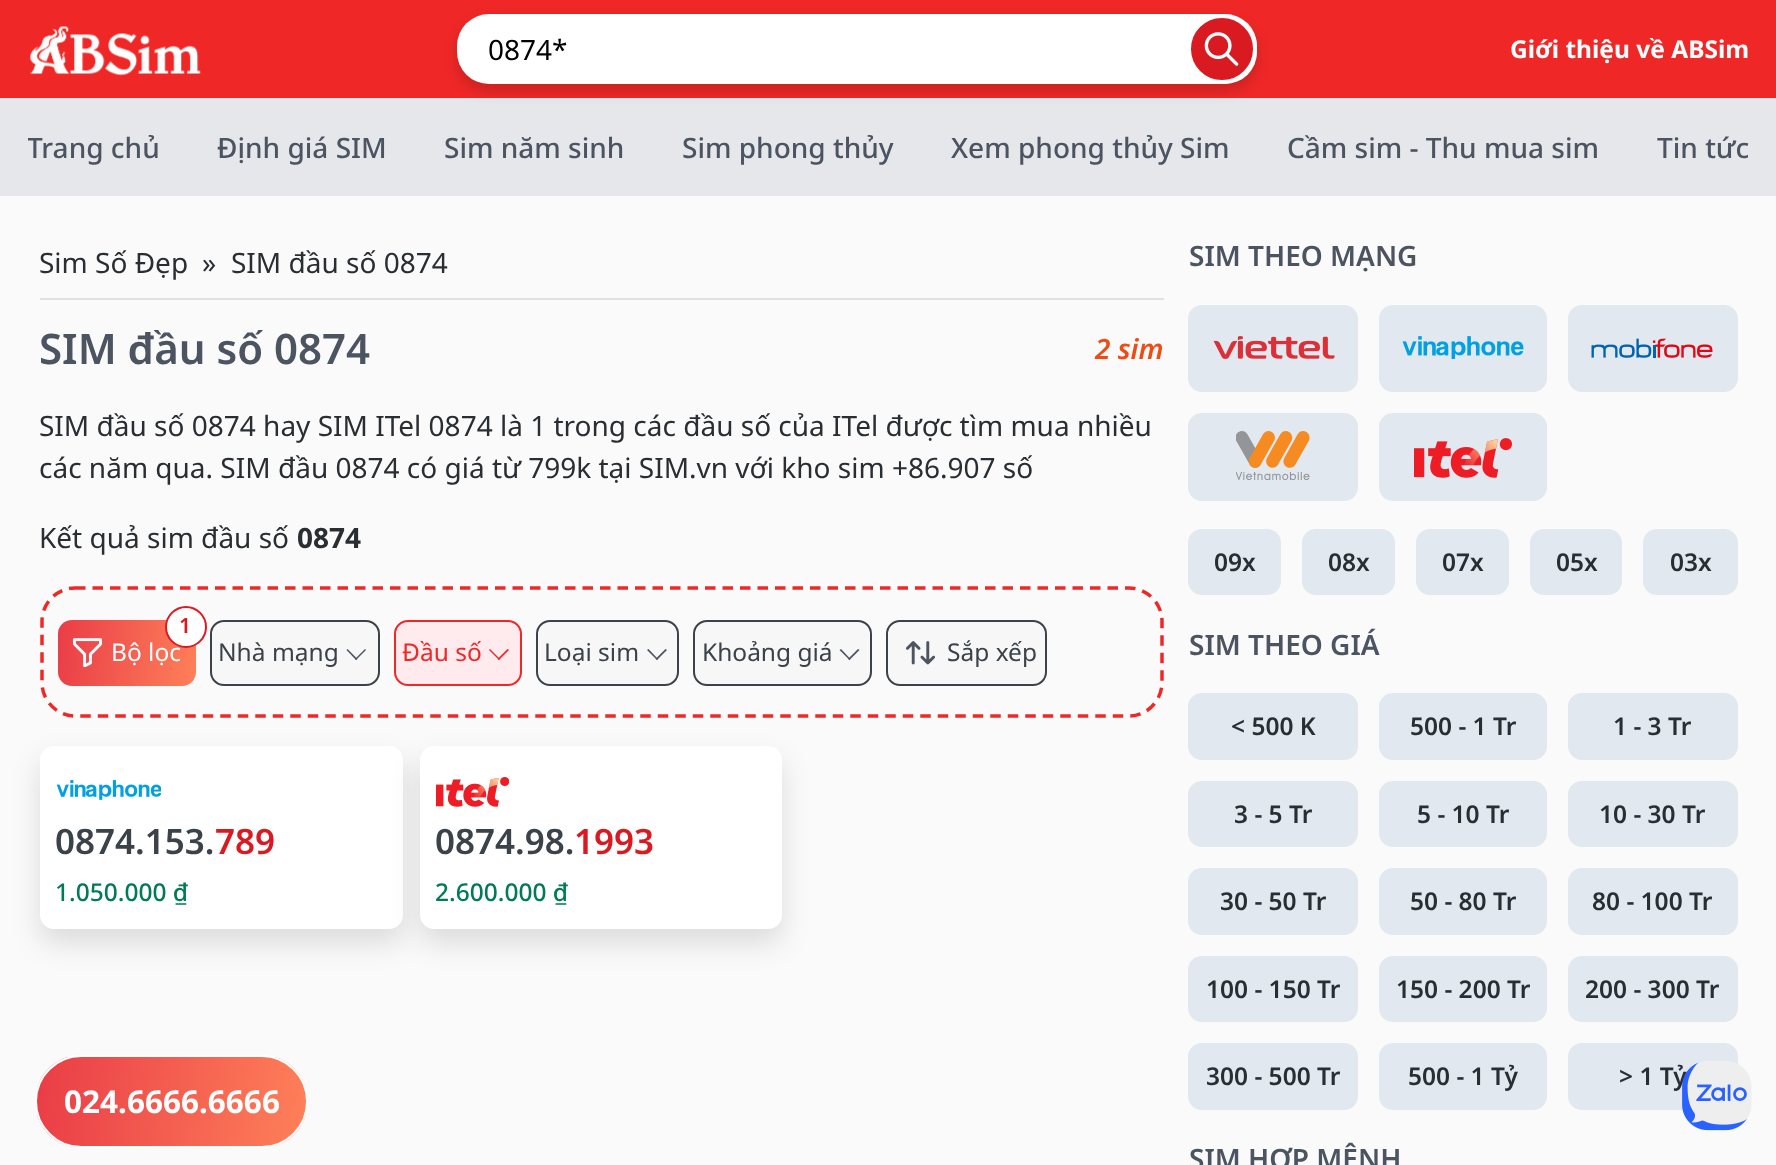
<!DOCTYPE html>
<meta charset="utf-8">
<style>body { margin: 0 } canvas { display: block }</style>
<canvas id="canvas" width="1776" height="1165"></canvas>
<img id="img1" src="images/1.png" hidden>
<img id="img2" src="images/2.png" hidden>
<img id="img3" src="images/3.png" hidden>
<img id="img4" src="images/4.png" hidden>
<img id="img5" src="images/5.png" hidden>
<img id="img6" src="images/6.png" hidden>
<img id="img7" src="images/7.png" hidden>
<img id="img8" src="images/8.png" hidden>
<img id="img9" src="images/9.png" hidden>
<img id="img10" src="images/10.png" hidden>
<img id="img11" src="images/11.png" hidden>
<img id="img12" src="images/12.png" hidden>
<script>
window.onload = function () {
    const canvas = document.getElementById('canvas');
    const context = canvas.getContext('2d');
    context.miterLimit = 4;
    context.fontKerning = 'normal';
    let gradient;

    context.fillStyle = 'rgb(250, 250, 250)';
    context.fillRect(0, 0, 1776, 1165);
    context.fillStyle = 'rgb(239, 40, 39)';
    context.fillRect(0, 0, 1776, 98);
    context.drawImage(document.getElementById('img1'), 30, 26, 171, 50);
    context.fillStyle = 'rgb(229, 231, 235)';
    context.fillRect(0, 98, 1776, 98);
    context.fillStyle = 'rgba(0, 0, 0, 0.16)';
    context.filter = 'blur(7px)';
    context.beginPath();
    context.roundRect(457, 21, 800, 70, 32);
    context.fill();
    context.filter = 'none';
    context.fillStyle = 'rgb(255, 255, 255)';
    context.beginPath();
    context.roundRect(457, 14, 800, 70, 32);
    context.fill();
    context.fillStyle = 'rgb(217, 26, 33)';
    context.beginPath();
    context.arc(1222, 49, 33, 0, 2 * Math.PI);
    context.fill();
    context.strokeStyle = 'rgb(255, 255, 255)';
    context.lineWidth = 4;
    context.stroke();
    context.drawImage(document.getElementById('img2'), 1204, 32, 35, 34);
    context.fillStyle = 'rgb(225, 225, 225)';
    context.fillRect(40, 298, 1124, 2);
    context.beginPath();
    context.moveTo(75, 588);
    context.lineTo(1129, 588);
    context.bezierCurveTo(1147, 588, 1162, 603, 1162, 621);
    context.lineTo(1162, 682.5);
    context.bezierCurveTo(1162, 701, 1147, 716, 1129, 716);
    context.lineTo(75, 716);
    context.bezierCurveTo(57, 716, 42, 701, 42, 682.5);
    context.lineTo(42, 621);
    context.bezierCurveTo(42, 603, 57, 588, 75, 588);
    context.closePath();
    context.strokeStyle = 'rgb(239, 40, 39)';
    context.lineWidth = 3.5;
    context.setLineDash([10.5, 7]);
    context.stroke();
    gradient = context.createLinearGradient(55, 644, 199, 662);
    gradient.addColorStop(0.01, 'rgb(234, 61, 71)');
    gradient.addColorStop(1, 'rgb(254, 128, 89)');
    context.fillStyle = gradient;
    context.beginPath();
    context.roundRect(58, 620, 138, 66, 14);
    context.fill();
    context.fillStyle = 'rgb(255, 255, 255)';
    context.beginPath();
    context.arc(186, 627, 20, 0, 2 * Math.PI);
    context.fill();
    context.strokeStyle = 'rgb(221, 26, 33)';
    context.lineWidth = 2;
    context.setLineDash([]);
    context.stroke();
    context.drawImage(document.getElementById('img3'), 73, 638, 29, 29);
    context.fillStyle = 'rgb(247, 247, 247)';
    context.beginPath();
    context.roundRect(211, 621, 168, 64, 13);
    context.fill();
    context.strokeStyle = 'rgb(59, 66, 74)';
    context.stroke();
    context.fillStyle = 'rgb(75, 84, 96)';
    context.beginPath();
    context.moveTo(366, 650);
    context.lineTo(356, 660);
    context.lineTo(355, 659);
    context.lineTo(365, 649);
    context.closePath();
    context.fill();
    context.beginPath();
    context.moveTo(357.5, 659);
    context.lineTo(356, 660);
    context.lineTo(346.5, 650);
    context.lineTo(347.5, 649);
    context.closePath();
    context.fill();
    context.fillStyle = 'rgb(255, 234, 237)';
    context.beginPath();
    context.roundRect(395, 621, 126, 64, 13);
    context.fill();
    context.strokeStyle = 'rgb(239, 40, 39)';
    context.stroke();
    context.fillStyle = 'rgb(239, 40, 39)';
    context.beginPath();
    context.moveTo(509, 650);
    context.lineTo(499, 660);
    context.lineTo(497.5, 659);
    context.lineTo(507.5, 649);
    context.closePath();
    context.fill();
    context.beginPath();
    context.moveTo(500, 659);
    context.lineTo(499, 660);
    context.lineTo(489, 650);
    context.lineTo(490, 649);
    context.closePath();
    context.fill();
    context.fillStyle = 'rgb(247, 247, 247)';
    context.beginPath();
    context.roundRect(537, 621, 141, 64, 13);
    context.fill();
    context.strokeStyle = 'rgb(59, 66, 74)';
    context.stroke();
    context.fillStyle = 'rgb(75, 84, 96)';
    context.beginPath();
    context.moveTo(667, 650);
    context.lineTo(657, 660);
    context.lineTo(655.5, 659);
    context.lineTo(665.5, 649);
    context.closePath();
    context.fill();
    context.beginPath();
    context.moveTo(658, 659);
    context.lineTo(657, 660);
    context.lineTo(647, 650);
    context.lineTo(648.5, 649);
    context.closePath();
    context.fill();
    context.fillStyle = 'rgb(247, 247, 247)';
    context.beginPath();
    context.roundRect(694, 621, 177, 64, 13);
    context.fill();
    context.stroke();
    context.fillStyle = 'rgb(75, 84, 96)';
    context.beginPath();
    context.moveTo(859.5, 650);
    context.lineTo(849.5, 660);
    context.lineTo(848, 659);
    context.lineTo(858, 649);
    context.closePath();
    context.fill();
    context.beginPath();
    context.moveTo(850.5, 659);
    context.lineTo(849.5, 660);
    context.lineTo(839.5, 650);
    context.lineTo(841, 649);
    context.closePath();
    context.fill();
    context.fillStyle = 'rgb(247, 247, 247)';
    context.beginPath();
    context.roundRect(887, 621, 159, 64, 13);
    context.fill();
    context.stroke();
    context.drawImage(document.getElementById('img4'), 905, 641, 30, 24);
    context.fillStyle = 'rgba(0, 0, 0, 0.12)';
    context.filter = 'blur(14px)';
    context.beginPath();
    context.roundRect(40, 760, 363, 183, 14);
    context.fill();
    context.filter = 'none';
    context.fillStyle = 'rgb(255, 255, 255)';
    context.beginPath();
    context.roundRect(41, 747, 361, 181, 13);
    context.fill();
    context.strokeStyle = 'rgb(255, 255, 255)';
    context.stroke();
    context.drawImage(document.getElementById('img5'), 56, 780, 105, 20);
    context.fillStyle = 'rgba(0, 0, 0, 0.12)';
    context.filter = 'blur(14px)';
    context.beginPath();
    context.roundRect(420, 760, 362, 183, 14);
    context.fill();
    context.filter = 'none';
    context.fillStyle = 'rgb(255, 255, 255)';
    context.beginPath();
    context.roundRect(421, 747, 360, 181, 13);
    context.fill();
    context.stroke();
    context.drawImage(document.getElementById('img6'), 436, 777, 73, 30);
    context.fillStyle = 'rgb(226, 232, 240)';
    context.beginPath();
    context.roundRect(1189, 306, 168, 85, 13);
    context.fill();
    context.strokeStyle = 'rgb(226, 232, 240)';
    context.stroke();
    context.drawImage(document.getElementById('img7'), 1213, 336, 122, 23);
    context.beginPath();
    context.roundRect(1380, 306, 166, 85, 13);
    context.fill();
    context.stroke();
    context.drawImage(document.getElementById('img8'), 1402, 336, 122, 23);
    context.beginPath();
    context.roundRect(1569, 306, 168, 85, 13);
    context.fill();
    context.stroke();
    context.drawImage(document.getElementById('img9'), 1591, 338, 122, 20);
    context.beginPath();
    context.roundRect(1189, 414, 168, 86, 13);
    context.fill();
    context.stroke();
    context.drawImage(document.getElementById('img10'), 1236, 431, 74, 49);
    context.beginPath();
    context.roundRect(1380, 414, 166, 86, 13);
    context.fill();
    context.stroke();
    context.drawImage(document.getElementById('img11'), 1414, 438, 98, 40);
    context.beginPath();
    context.roundRect(1189, 530, 91, 64, 13);
    context.fill();
    context.stroke();
    context.beginPath();
    context.roundRect(1303, 530, 91, 64, 13);
    context.fill();
    context.stroke();
    context.beginPath();
    context.roundRect(1417, 530, 91, 64, 13);
    context.fill();
    context.stroke();
    context.beginPath();
    context.roundRect(1531, 530, 90, 64, 13);
    context.fill();
    context.stroke();
    context.beginPath();
    context.roundRect(1644, 530, 93, 64, 13);
    context.fill();
    context.stroke();
    context.beginPath();
    context.roundRect(1189, 694, 168, 65, 13);
    context.fill();
    context.stroke();
    context.beginPath();
    context.roundRect(1380, 694, 166, 65, 13);
    context.fill();
    context.stroke();
    context.beginPath();
    context.roundRect(1569, 694, 168, 65, 13);
    context.fill();
    context.stroke();
    context.beginPath();
    context.roundRect(1189, 782, 168, 64, 13);
    context.fill();
    context.stroke();
    context.beginPath();
    context.roundRect(1380, 782, 166, 64, 13);
    context.fill();
    context.stroke();
    context.beginPath();
    context.roundRect(1569, 782, 168, 64, 13);
    context.fill();
    context.stroke();
    context.beginPath();
    context.roundRect(1189, 869, 168, 65, 13);
    context.fill();
    context.stroke();
    context.beginPath();
    context.roundRect(1380, 869, 166, 65, 13);
    context.fill();
    context.stroke();
    context.beginPath();
    context.roundRect(1569, 869, 168, 65, 13);
    context.fill();
    context.stroke();
    context.beginPath();
    context.roundRect(1189, 957, 168, 64, 13);
    context.fill();
    context.stroke();
    context.beginPath();
    context.roundRect(1380, 957, 166, 64, 13);
    context.fill();
    context.stroke();
    context.beginPath();
    context.roundRect(1569, 957, 168, 64, 13);
    context.fill();
    context.stroke();
    context.beginPath();
    context.roundRect(1189, 1044, 168, 65, 13);
    context.fill();
    context.stroke();
    context.beginPath();
    context.roundRect(1380, 1044, 166, 65, 13);
    context.fill();
    context.stroke();
    context.beginPath();
    context.roundRect(1569, 1044, 168, 65, 13);
    context.fill();
    context.stroke();
    context.save();
    context.beginPath();
    context.roundRect(35, 1055, 273, 93, 46.5);
    context.clip();
    gradient = context.createLinearGradient(33, 1085, 310, 1119);
    gradient.addColorStop(0.01, 'rgb(234, 61, 71)');
    gradient.addColorStop(1, 'rgb(254, 128, 89)');
    context.fillStyle = gradient;
    context.fillRect(37, 1057, 269, 89);
    context.restore();
    context.beginPath();
    context.roundRect(36, 1056, 271, 91, 45.5);
    context.strokeStyle = 'rgb(255, 255, 255)';
    context.stroke();
    context.font = '28px Noto Sans';
    context.fillStyle = 'rgb(0, 0, 0)';
    context.fillText('0874*', 488, 60);
    context.font = 'bold 24.5px Noto Sans';
    context.fillStyle = 'rgb(255, 255, 255)';
    context.fillText('Giới thiệu về ABSim', 1510, 58);
    context.save();
    context.beginPath();
    context.rect(28, 105, 1722, 84);
    context.clip();
    context.font = '500 28px Noto Sans';
    context.fillStyle = 'rgb(75, 84, 96)';
    context.fillText('Trang chủ', 27, 158);
    context.restore();
    context.font = '500 28px Noto Sans';
    context.fillStyle = 'rgb(75, 84, 96)';
    context.fillText('Định giá SIM', 217, 158);
    context.fillText('Sim năm sinh', 444, 158);
    context.fillText('Sim phong thủy', 682, 158);
    context.fillText('Xem phong thủy Sim', 951, 158);
    context.fillText('Cầm sim - Thu mua sim', 1287, 158);
    context.fillText('Tin tức', 1657, 158);
    context.font = '28px Noto Sans';
    context.fillStyle = 'rgb(41, 46, 51)';
    context.fillText('Sim Số Đẹp', 39, 273);
    context.fillText('»', 202, 273);
    context.fillText('SIM đầu số 0874', 231, 273);
    context.font = '600 42px Noto Sans';
    context.fillStyle = 'rgb(75, 84, 96)';
    context.fillText('SIM đầu số 0874', 39, 364);
    context.font = 'italic 600 28px Noto Sans';
    context.fillStyle = 'rgb(240, 75, 18)';
    context.fillText('2 sim', 1095, 359);
    context.font = '28px Noto Sans';
    context.fillStyle = 'rgb(41, 46, 51)';
    context.fillText('SIM đầu số 0874 hay SIM ITel 0874 là 1 trong các đầu số của ITel được tìm mua nhiều', 39, 436);
    context.fillText('các năm qua. SIM đầu 0874 có giá từ 799k tại SIM.vn với kho sim +86.907 số', 39, 478);
    context.fillText('Kết quả sim đầu số', 39, 548);
    context.font = 'bold 28px Noto Sans';
    context.fillText('0874', 297, 548);
    context.font = '600 21px Noto Sans';
    context.fillStyle = 'rgb(217, 26, 33)';
    context.fillText('1', 179, 633);
    context.font = '24.5px Noto Sans';
    context.fillStyle = 'rgb(255, 255, 255)';
    context.fillText('Bộ lọc', 111, 661);
    context.fillStyle = 'rgb(59, 66, 74)';
    context.fillText('Nhà mạng', 218, 661);
    context.fillStyle = 'rgb(239, 40, 39)';
    context.fillText('Đầu số', 402, 661);
    context.fillStyle = 'rgb(59, 66, 74)';
    context.fillText('Loại sim', 544, 661);
    context.fillText('Khoảng giá', 702, 661);
    context.fillText('Sắp xếp', 947, 661);
    context.font = '600 35px Noto Sans';
    context.fillText('0874.153.', 55, 854);
    context.fillStyle = 'rgb(217, 26, 33)';
    context.fillText('789', 215, 854);
    context.font = '500 24.5px Noto Sans';
    context.fillStyle = 'rgb(0, 122, 87)';
    context.fillText('1.050.000 ₫', 55, 901);
    context.font = '600 35px Noto Sans';
    context.fillStyle = 'rgb(59, 66, 74)';
    context.fillText('0874.98.', 435, 854);
    context.fillStyle = 'rgb(217, 26, 33)';
    context.fillText('1993', 574, 854);
    context.font = '500 24.5px Noto Sans';
    context.fillStyle = 'rgb(0, 122, 87)';
    context.fillText('2.600.000 ₫', 435, 901);
    context.font = '600 28px Noto Sans';
    context.fillStyle = 'rgb(75, 84, 96)';
    context.fillText('SIM THEO MẠNG', 1189, 266);
    context.font = '600 24.5px Noto Sans';
    context.fillStyle = 'rgb(41, 46, 51)';
    context.fillText('09x', 1214, 571);
    context.fillText('08x', 1328, 571);
    context.fillText('07x', 1442, 571);
    context.fillText('05x', 1556, 571);
    context.fillText('03x', 1670, 571);
    context.font = '600 28px Noto Sans';
    context.fillStyle = 'rgb(75, 84, 96)';
    context.fillText('SIM THEO GIÁ', 1189, 655);
    context.font = '600 24.5px Noto Sans';
    context.fillStyle = 'rgb(41, 46, 51)';
    context.fillText('< 500 K', 1231, 735);
    context.fillText('500 - 1 Tr', 1410, 735);
    context.fillText('1 - 3 Tr', 1613, 735);
    context.fillText('3 - 5 Tr', 1234, 823);
    context.fillText('5 - 10 Tr', 1417, 823);
    context.fillText('10 - 30 Tr', 1599, 823);
    context.fillText('30 - 50 Tr', 1220, 910);
    context.fillText('50 - 80 Tr', 1410, 910);
    context.fillText('80 - 100 Tr', 1592, 910);
    context.fillText('100 - 150 Tr', 1206, 998);
    context.fillText('150 - 200 Tr', 1396, 998);
    context.fillText('200 - 300 Tr', 1585, 998);
    context.fillText('300 - 500 Tr', 1206, 1085);
    context.fillText('500 - 1 Tỷ', 1408, 1085);
    context.fillText('> 1 Tỷ', 1619, 1085);
    context.font = '600 28px Noto Sans';
    context.fillStyle = 'rgb(75, 84, 96)';
    context.fillText('SIM HỢP MỆNH', 1189, 1169);
    context.font = 'bold 31.5px Noto Sans';
    context.fillStyle = 'rgb(255, 255, 255)';
    context.fillText('024.6666.6666', 64, 1113);
    context.drawImage(document.getElementById('img12'), 1682, 1061, 70, 70);
};
</script>
